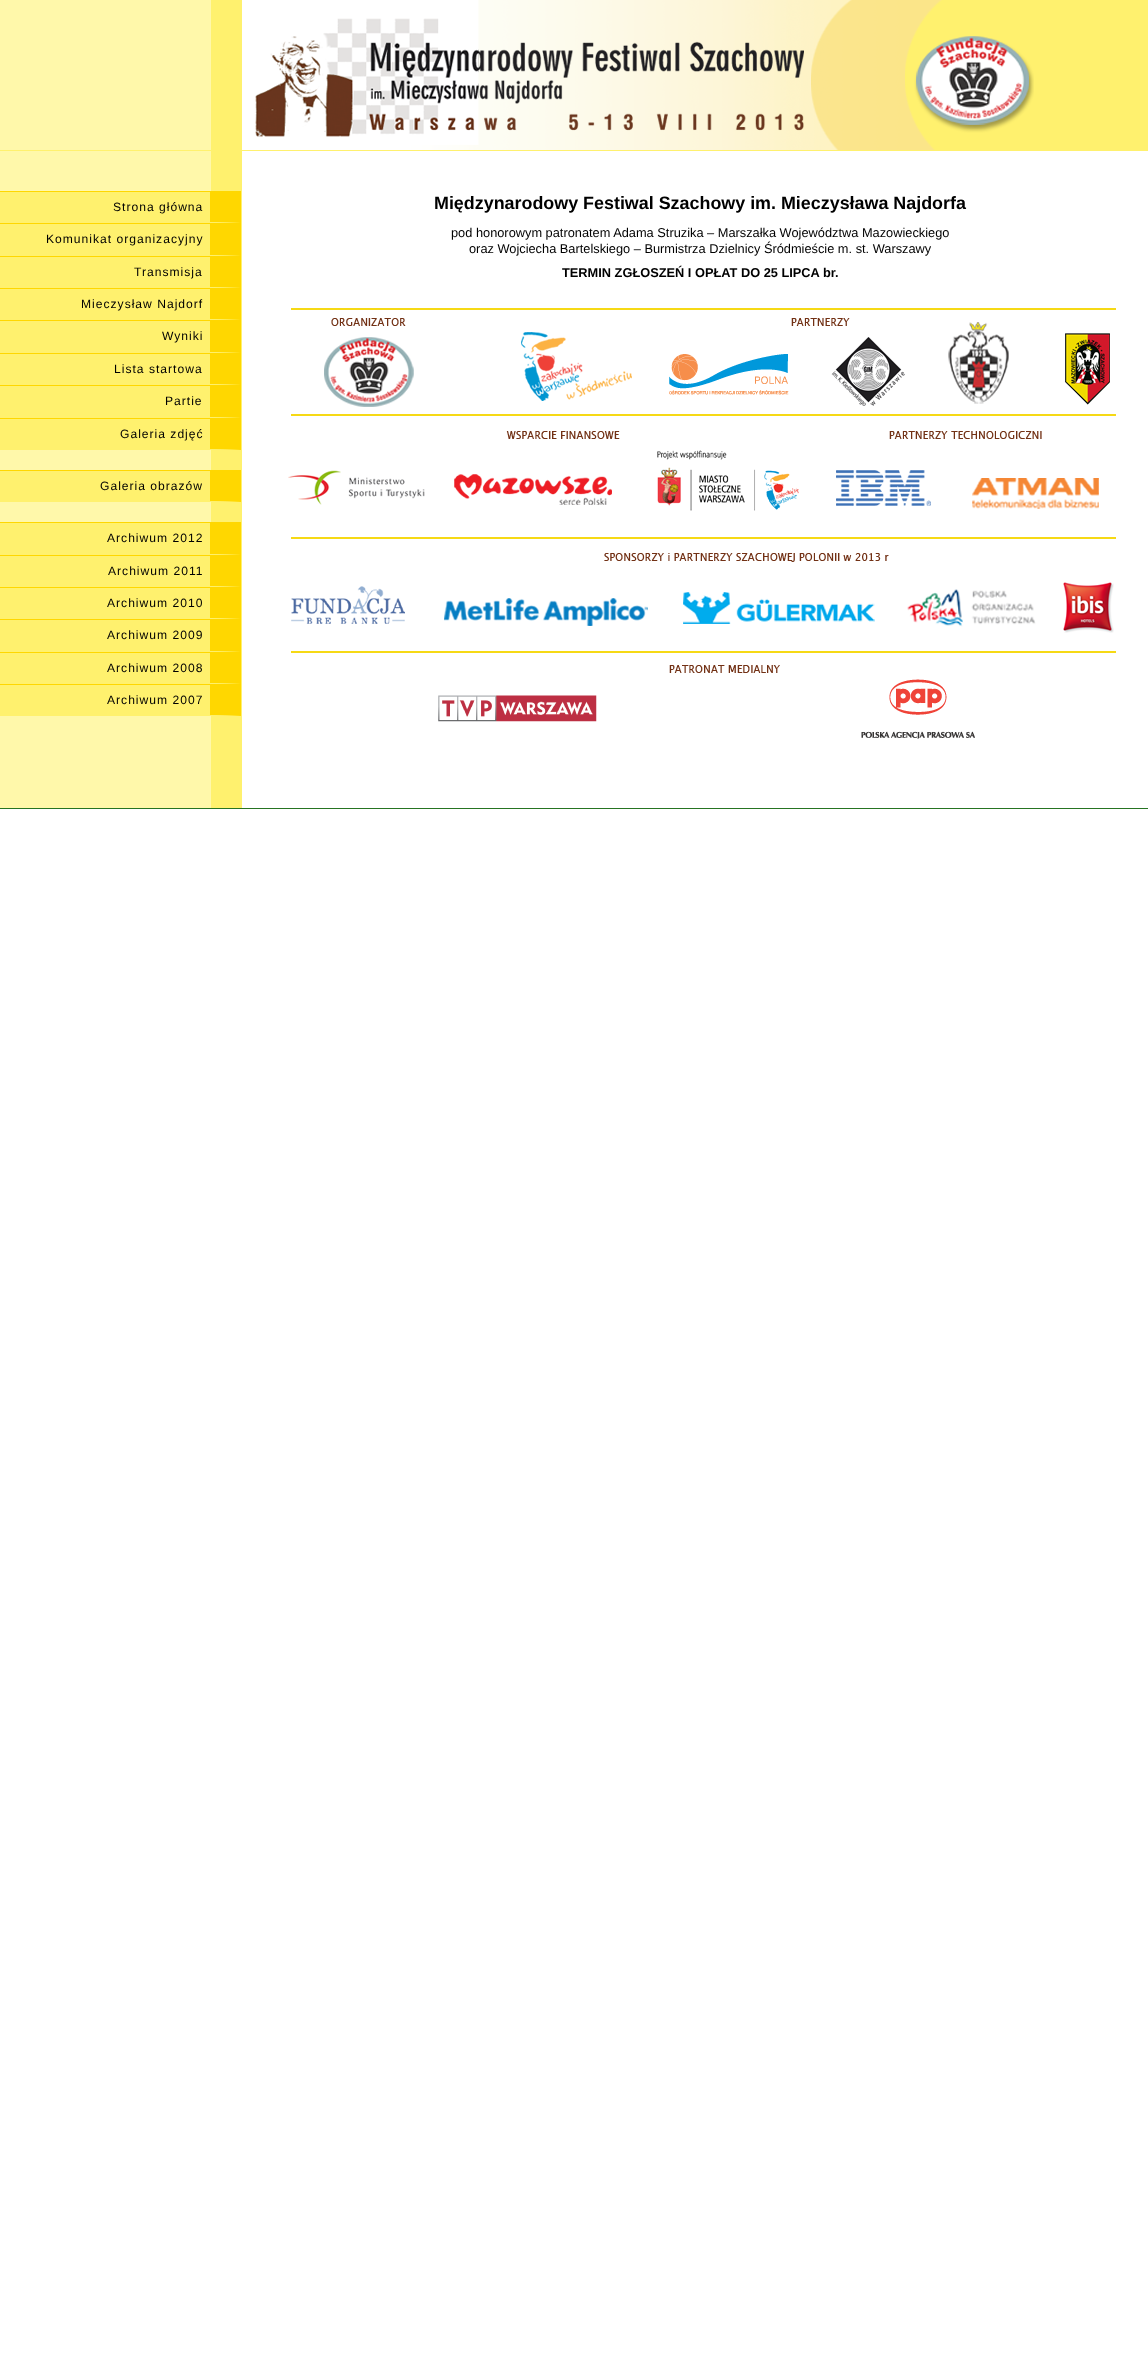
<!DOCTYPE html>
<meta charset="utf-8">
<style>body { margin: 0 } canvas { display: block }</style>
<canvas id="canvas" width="1148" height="2358"></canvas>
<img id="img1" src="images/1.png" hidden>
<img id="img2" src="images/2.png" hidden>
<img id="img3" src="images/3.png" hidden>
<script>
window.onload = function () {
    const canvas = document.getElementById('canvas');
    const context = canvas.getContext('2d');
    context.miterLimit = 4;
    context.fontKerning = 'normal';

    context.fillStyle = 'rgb(255, 255, 255)';
    context.fillRect(0, 0, 1148, 2358);
    context.drawImage(document.getElementById('img1'), 0, 151, 242, 657);
    context.fillStyle = 'rgb(255, 241, 110)';
    context.fillRect(211, 0, 937, 150);
    context.fillStyle = 'rgb(255, 248, 170)';
    context.fillRect(0, 0, 211, 150);
    context.fillStyle = 'rgb(255, 241, 110)';
    context.fillRect(0, 150, 1148, 1);
    context.drawImage(document.getElementById('img2'), 242, 0, 792, 150);
    context.fillRect(0, 192, 211, 31);
    context.fillStyle = 'rgb(255, 215, 0)';
    context.fillRect(0, 191, 241, 1);
    context.beginPath();
    context.moveTo(241, 191);
    context.lineTo(241, 223);
    context.lineTo(210, 222);
    context.lineTo(210, 192);
    context.closePath();
    context.fill();
    context.fillStyle = 'rgb(255, 241, 110)';
    context.beginPath();
    context.moveTo(241, 223);
    context.lineTo(0, 223);
    context.lineTo(0, 222);
    context.lineTo(210, 222);
    context.closePath();
    context.fill();
    context.fillRect(0, 224, 211, 32);
    context.fillStyle = 'rgb(255, 215, 0)';
    context.fillRect(0, 223, 241, 1);
    context.beginPath();
    context.moveTo(241, 223);
    context.lineTo(241, 256);
    context.lineTo(210, 255);
    context.lineTo(210, 224);
    context.closePath();
    context.fill();
    context.fillStyle = 'rgb(255, 241, 110)';
    context.beginPath();
    context.moveTo(241, 256);
    context.lineTo(0, 256);
    context.lineTo(0, 255);
    context.lineTo(210, 255);
    context.closePath();
    context.fill();
    context.fillRect(0, 257, 211, 31);
    context.fillStyle = 'rgb(255, 215, 0)';
    context.fillRect(0, 256, 241, 1);
    context.beginPath();
    context.moveTo(241, 256);
    context.lineTo(241, 288);
    context.lineTo(210, 287);
    context.lineTo(210, 257);
    context.closePath();
    context.fill();
    context.fillStyle = 'rgb(255, 241, 110)';
    context.beginPath();
    context.moveTo(241, 288);
    context.lineTo(0, 288);
    context.lineTo(0, 287);
    context.lineTo(210, 287);
    context.closePath();
    context.fill();
    context.fillRect(0, 289, 211, 31);
    context.fillStyle = 'rgb(255, 215, 0)';
    context.fillRect(0, 288, 241, 1);
    context.beginPath();
    context.moveTo(241, 288);
    context.lineTo(241, 320);
    context.lineTo(210, 319);
    context.lineTo(210, 289);
    context.closePath();
    context.fill();
    context.fillStyle = 'rgb(255, 241, 110)';
    context.beginPath();
    context.moveTo(241, 320);
    context.lineTo(0, 320);
    context.lineTo(0, 319);
    context.lineTo(210, 319);
    context.closePath();
    context.fill();
    context.fillRect(0, 321, 211, 32);
    context.fillStyle = 'rgb(255, 215, 0)';
    context.fillRect(0, 320, 241, 1);
    context.beginPath();
    context.moveTo(241, 320);
    context.lineTo(241, 353);
    context.lineTo(210, 352);
    context.lineTo(210, 321);
    context.closePath();
    context.fill();
    context.fillStyle = 'rgb(255, 241, 110)';
    context.beginPath();
    context.moveTo(241, 353);
    context.lineTo(0, 353);
    context.lineTo(0, 352);
    context.lineTo(210, 352);
    context.closePath();
    context.fill();
    context.fillRect(0, 354, 211, 31);
    context.fillStyle = 'rgb(255, 215, 0)';
    context.fillRect(0, 353, 241, 1);
    context.beginPath();
    context.moveTo(241, 353);
    context.lineTo(241, 385);
    context.lineTo(210, 384);
    context.lineTo(210, 354);
    context.closePath();
    context.fill();
    context.fillStyle = 'rgb(255, 241, 110)';
    context.beginPath();
    context.moveTo(241, 385);
    context.lineTo(0, 385);
    context.lineTo(0, 384);
    context.lineTo(210, 384);
    context.closePath();
    context.fill();
    context.fillRect(0, 386, 211, 32);
    context.fillStyle = 'rgb(255, 215, 0)';
    context.fillRect(0, 385, 241, 1);
    context.beginPath();
    context.moveTo(241, 385);
    context.lineTo(241, 418);
    context.lineTo(210, 417);
    context.lineTo(210, 386);
    context.closePath();
    context.fill();
    context.fillStyle = 'rgb(255, 241, 110)';
    context.beginPath();
    context.moveTo(241, 418);
    context.lineTo(0, 418);
    context.lineTo(0, 417);
    context.lineTo(210, 417);
    context.closePath();
    context.fill();
    context.fillRect(0, 419, 211, 31);
    context.fillStyle = 'rgb(255, 215, 0)';
    context.fillRect(0, 418, 241, 1);
    context.beginPath();
    context.moveTo(241, 418);
    context.lineTo(241, 450);
    context.lineTo(210, 449);
    context.lineTo(210, 419);
    context.closePath();
    context.fill();
    context.fillStyle = 'rgb(255, 241, 110)';
    context.beginPath();
    context.moveTo(241, 450);
    context.lineTo(0, 450);
    context.lineTo(0, 449);
    context.lineTo(210, 449);
    context.closePath();
    context.fill();
    context.fillRect(0, 471, 211, 31);
    context.fillStyle = 'rgb(255, 215, 0)';
    context.fillRect(0, 470, 241, 1);
    context.beginPath();
    context.moveTo(241, 470);
    context.lineTo(241, 502);
    context.lineTo(210, 501);
    context.lineTo(210, 471);
    context.closePath();
    context.fill();
    context.fillStyle = 'rgb(255, 241, 110)';
    context.beginPath();
    context.moveTo(241, 502);
    context.lineTo(0, 502);
    context.lineTo(0, 501);
    context.lineTo(210, 501);
    context.closePath();
    context.fill();
    context.fillRect(0, 523, 211, 32);
    context.fillStyle = 'rgb(255, 215, 0)';
    context.fillRect(0, 522, 241, 1);
    context.beginPath();
    context.moveTo(241, 522);
    context.lineTo(241, 555);
    context.lineTo(210, 554);
    context.lineTo(210, 523);
    context.closePath();
    context.fill();
    context.fillStyle = 'rgb(255, 241, 110)';
    context.beginPath();
    context.moveTo(241, 555);
    context.lineTo(0, 555);
    context.lineTo(0, 554);
    context.lineTo(210, 554);
    context.closePath();
    context.fill();
    context.fillRect(0, 556, 211, 31);
    context.fillStyle = 'rgb(255, 215, 0)';
    context.fillRect(0, 555, 241, 1);
    context.beginPath();
    context.moveTo(241, 555);
    context.lineTo(241, 587);
    context.lineTo(210, 586);
    context.lineTo(210, 556);
    context.closePath();
    context.fill();
    context.fillStyle = 'rgb(255, 241, 110)';
    context.beginPath();
    context.moveTo(241, 587);
    context.lineTo(0, 587);
    context.lineTo(0, 586);
    context.lineTo(210, 586);
    context.closePath();
    context.fill();
    context.fillRect(0, 588, 211, 31);
    context.fillStyle = 'rgb(255, 215, 0)';
    context.fillRect(0, 587, 241, 1);
    context.beginPath();
    context.moveTo(241, 587);
    context.lineTo(241, 619);
    context.lineTo(210, 618);
    context.lineTo(210, 588);
    context.closePath();
    context.fill();
    context.fillStyle = 'rgb(255, 241, 110)';
    context.beginPath();
    context.moveTo(241, 619);
    context.lineTo(0, 619);
    context.lineTo(0, 618);
    context.lineTo(210, 618);
    context.closePath();
    context.fill();
    context.fillRect(0, 620, 211, 32);
    context.fillStyle = 'rgb(255, 215, 0)';
    context.fillRect(0, 619, 241, 1);
    context.beginPath();
    context.moveTo(241, 619);
    context.lineTo(241, 652);
    context.lineTo(210, 651);
    context.lineTo(210, 620);
    context.closePath();
    context.fill();
    context.fillStyle = 'rgb(255, 241, 110)';
    context.beginPath();
    context.moveTo(241, 652);
    context.lineTo(0, 652);
    context.lineTo(0, 651);
    context.lineTo(210, 651);
    context.closePath();
    context.fill();
    context.fillRect(0, 653, 211, 31);
    context.fillStyle = 'rgb(255, 215, 0)';
    context.fillRect(0, 652, 241, 1);
    context.beginPath();
    context.moveTo(241, 652);
    context.lineTo(241, 684);
    context.lineTo(210, 683);
    context.lineTo(210, 653);
    context.closePath();
    context.fill();
    context.fillStyle = 'rgb(255, 241, 110)';
    context.beginPath();
    context.moveTo(241, 684);
    context.lineTo(0, 684);
    context.lineTo(0, 683);
    context.lineTo(210, 683);
    context.closePath();
    context.fill();
    context.fillRect(0, 685, 211, 31);
    context.fillStyle = 'rgb(255, 215, 0)';
    context.fillRect(0, 684, 241, 1);
    context.beginPath();
    context.moveTo(241, 684);
    context.lineTo(241, 716);
    context.lineTo(210, 715);
    context.lineTo(210, 685);
    context.closePath();
    context.fill();
    context.fillStyle = 'rgb(255, 241, 110)';
    context.beginPath();
    context.moveTo(241, 716);
    context.lineTo(0, 716);
    context.lineTo(0, 715);
    context.lineTo(210, 715);
    context.closePath();
    context.fill();
    context.drawImage(document.getElementById('img3'), 288, 308, 828, 431);
    context.fillStyle = 'rgb(38, 116, 34)';
    context.fillRect(0, 808, 1148, 1);
    context.letterSpacing = '1px';
    context.font = '12.1px Liberation Sans';
    context.fillStyle = 'rgb(0, 0, 0)';
    context.fillText('Strona główna', 113, 211);
    context.fillText('Komunikat organizacyjny', 46, 243);
    context.fillText('Transmisja', 134, 276);
    context.fillText('Mieczysław Najdorf', 81, 308);
    context.fillText('Wyniki', 162, 340);
    context.fillText('Lista startowa', 114, 373);
    context.fillText('Partie', 165, 405);
    context.fillText('Galeria zdjęć', 120, 438);
    context.fillText('Galeria obrazów', 100, 490);
    context.fillText('Archiwum 2012', 107, 542);
    context.fillText('Archiwum 2011', 108, 575);
    context.fillText('Archiwum 2010', 107, 607);
    context.fillText('Archiwum 2009', 107, 639);
    context.fillText('Archiwum 2008', 107, 672);
    context.fillText('Archiwum 2007', 107, 704);
    context.letterSpacing = '0px';
    context.font = 'bold 17.9px Liberation Sans';
    context.fillText('Międzynarodowy Festiwal Szachowy im. Mieczysława Najdorfa', 434, 209);
    context.font = '12.8px Liberation Sans';
    context.fillText('pod honorowym patronatem Adama Struzika – Marszałka Województwa Mazowieckiego', 451, 237);
    context.fillText('oraz Wojciecha Bartelskiego – Burmistrza Dzielnicy Śródmieście m. st. Warszawy', 469, 253);
    context.font = 'bold 12.8px Liberation Sans';
    context.fillText('TERMIN ZGŁOSZEŃ I OPŁAT DO 25 LIPCA br.', 562, 277);
};
</script>
